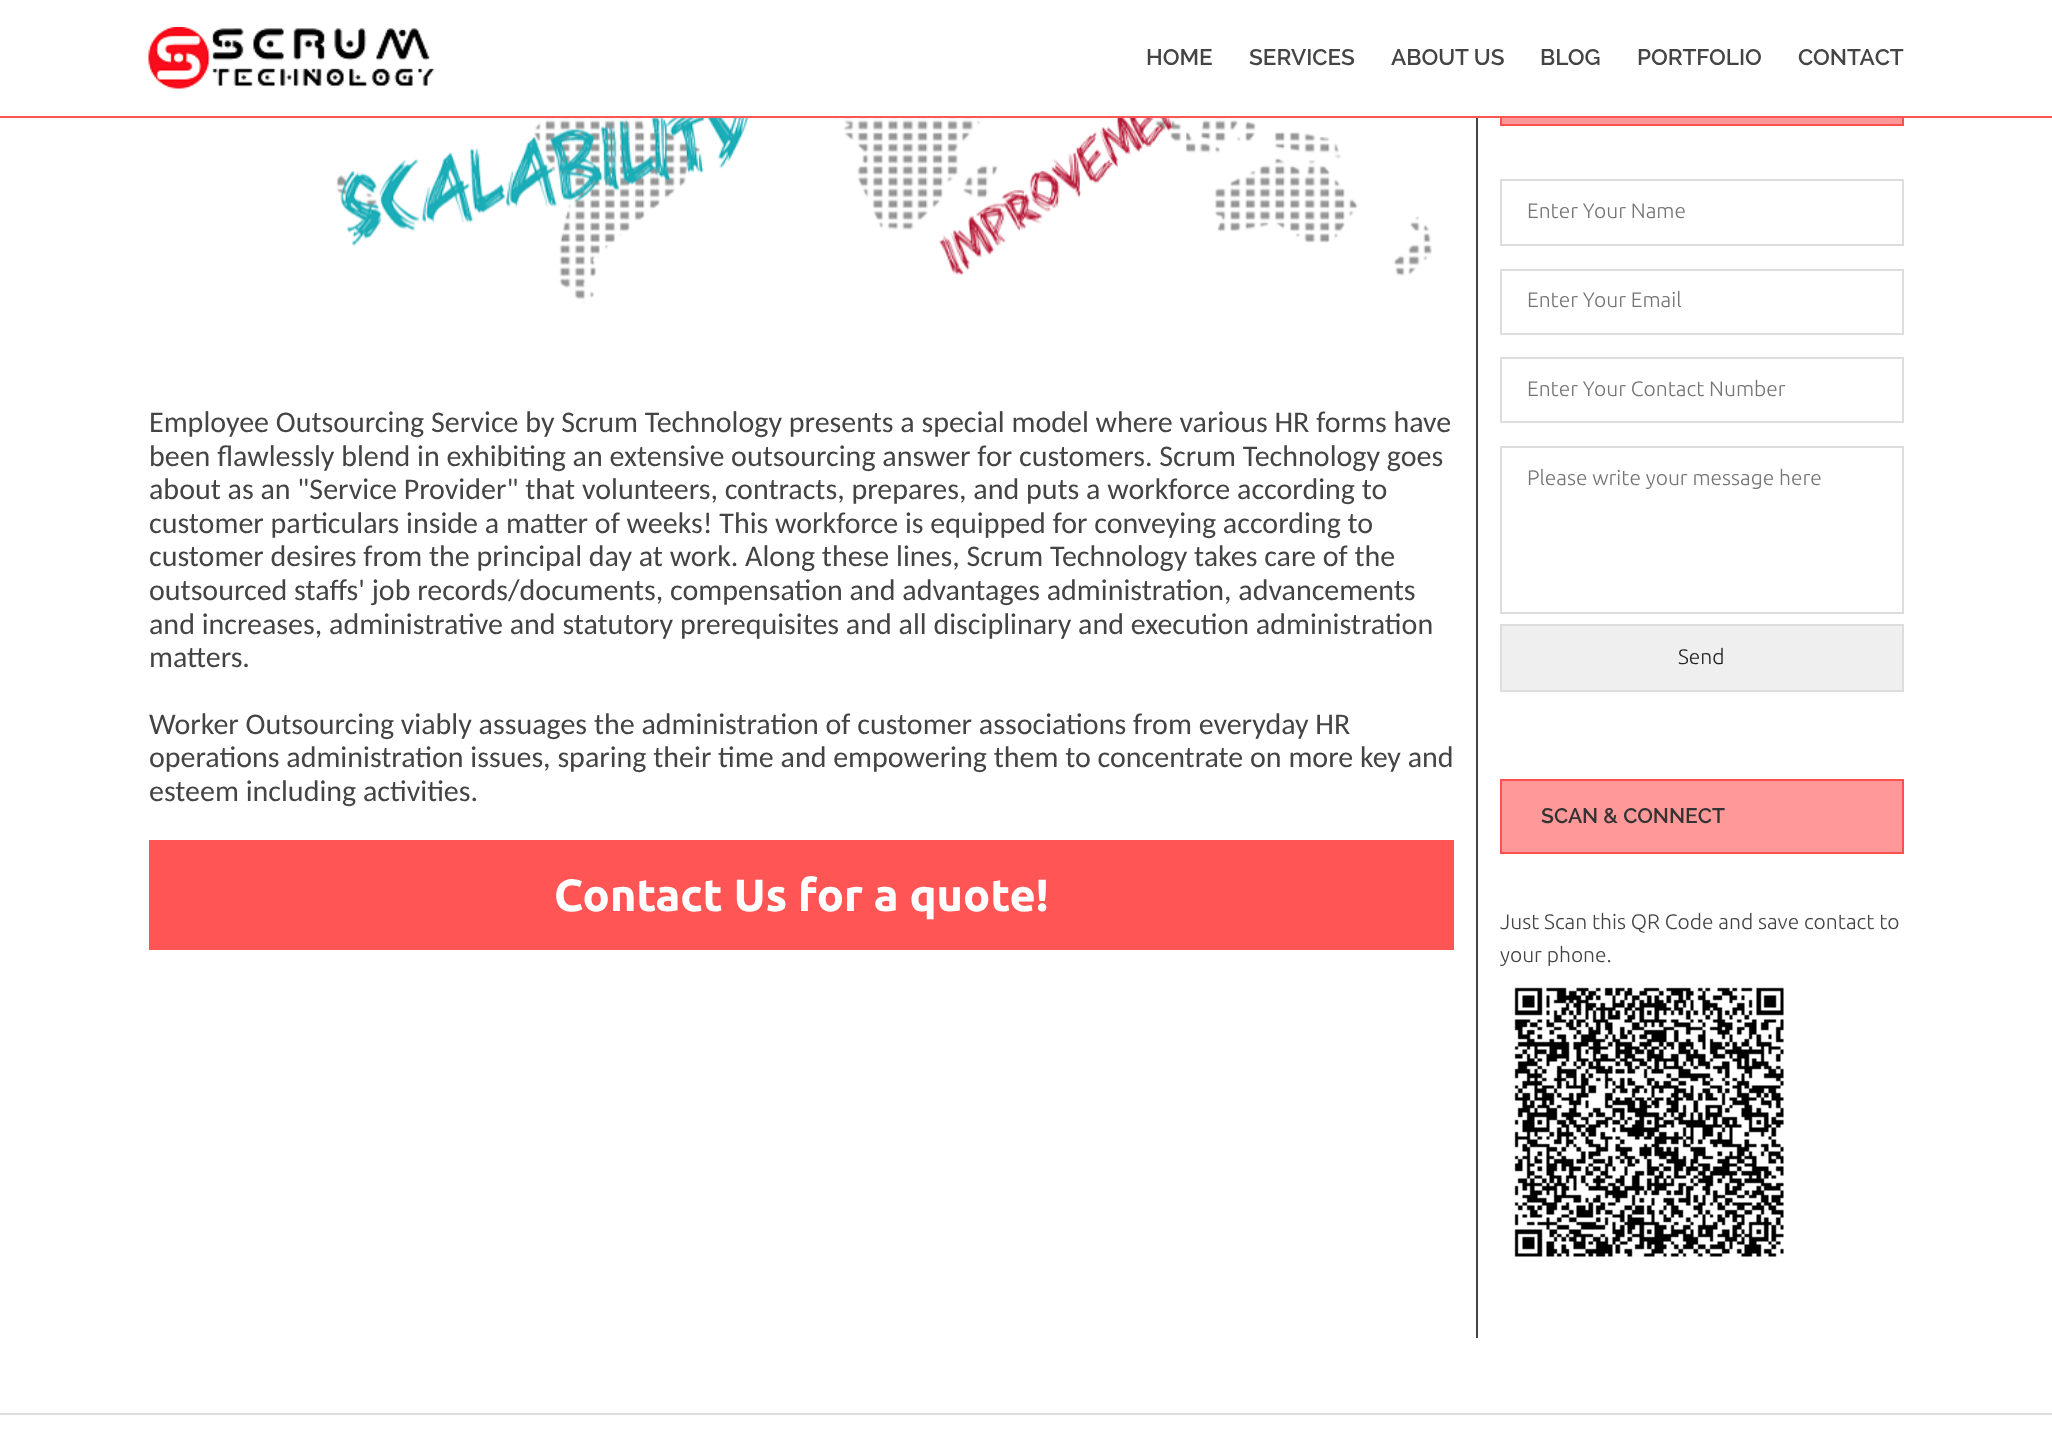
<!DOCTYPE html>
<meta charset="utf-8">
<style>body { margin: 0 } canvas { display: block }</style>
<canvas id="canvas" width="2052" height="1440"></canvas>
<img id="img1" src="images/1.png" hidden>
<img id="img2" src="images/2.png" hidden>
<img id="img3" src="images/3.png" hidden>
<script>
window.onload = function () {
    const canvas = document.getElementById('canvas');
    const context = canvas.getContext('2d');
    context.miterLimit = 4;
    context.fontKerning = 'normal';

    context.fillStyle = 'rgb(255, 255, 255)';
    context.fillRect(0, 0, 2052, 1440);
    context.fillStyle = 'rgb(255, 153, 153)';
    context.fillRect(1502, 118, 400, 6);
    context.strokeStyle = 'rgb(255, 80, 80)';
    context.lineWidth = 2;
    context.strokeRect(1501, 52, 402, 73);
    context.fillStyle = 'rgb(255, 255, 255)';
    context.fillRect(1500, 51, 404, 65);
    context.fillStyle = 'rgb(255, 85, 85)';
    context.fillRect(0, 116, 2052, 2);
    context.drawImage(document.getElementById('img1'), 148, 27, 286, 62);
    context.drawImage(document.getElementById('img2'), 183, 118, 1249, 186);
    context.fillRect(149, 840, 1305, 110);
    context.fillStyle = 'rgb(68, 68, 68)';
    context.fillRect(1476, 118, 2, 1220);
    context.strokeStyle = 'rgb(221, 221, 221)';
    context.strokeRect(1501, 180, 402, 65);
    context.strokeRect(1501, 270, 402, 64);
    context.strokeRect(1501, 358, 402, 64);
    context.strokeRect(1501, 447, 402, 166);
    context.fillStyle = 'rgb(239, 239, 239)';
    context.beginPath();
    context.rect(1501, 625, 402, 66);
    context.fill();
    context.stroke();
    context.fillStyle = 'rgb(255, 153, 153)';
    context.beginPath();
    context.rect(1501, 780, 402, 73);
    context.fill();
    context.strokeStyle = 'rgb(255, 80, 80)';
    context.stroke();
    context.drawImage(document.getElementById('img3'), 1514, 987, 270, 270);
    context.fillStyle = 'rgb(221, 221, 221)';
    context.fillRect(0, 1413, 2052, 2);
    context.font = '600 22.5px Raleway';
    context.fillStyle = 'rgb(68, 68, 68)';
    context.fillText('HOME', 1146, 65);
    context.fillText('SERVICES', 1249, 65);
    context.fillText('ABOUT US', 1391, 65);
    context.fillText('BLOG', 1540, 65);
    context.fillText('PORTFOLIO', 1637, 65);
    context.fillText('CONTACT', 1798, 65);
    context.font = '30px Carlito';
    context.fillText('Employee Outsourcing Service by Scrum Technology presents a special model where various HR forms have', 149, 432);
    context.fillText('been flawlessly blend in exhibiting an extensive outsourcing answer for customers. Scrum Technology goes', 149, 466);
    context.fillText('about as an "Service Provider" that volunteers, contracts, prepares, and puts a workforce according to', 149, 499);
    context.fillText('customer particulars inside a matter of weeks! This workforce is equipped for conveying according to', 149, 533);
    context.fillText('customer desires from the principal day at work. Along these lines, Scrum Technology takes care of the', 149, 566);
    context.fillText('outsourced staffs\' job records/documents, compensation and advantages administration, advancements', 149, 600);
    context.fillText('and increases, administrative and statutory prerequisites and all disciplinary and execution administration', 149, 634);
    context.fillText('matters.', 149, 667);
    context.fillText('Worker Outsourcing viably assuages the administration of customer associations from everyday HR', 149, 734);
    context.fillText('operations administration issues, sparing their time and empowering them to concentrate on more key and', 149, 767);
    context.fillText('esteem including activities.', 149, 801);
    context.font = 'bold 45px Ubuntu';
    context.fillStyle = 'rgb(255, 255, 255)';
    context.fillText('Contact Us for a quote!', 554, 911);
    context.font = '300 21px Ubuntu';
    context.fillStyle = 'rgb(117, 117, 117)';
    context.fillText('Enter Your Name', 1527, 218);
    context.fillText('Enter Your Email', 1527, 307);
    context.fillText('Enter Your Contact Number', 1527, 396);
    context.fillText('Please write your message here', 1527, 485);
    context.fillStyle = 'rgb(34, 34, 34)';
    context.fillText('Send', 1678, 664);
    context.font = '600 21px Raleway';
    context.fillStyle = 'rgb(51, 51, 51)';
    context.fillText('SCAN & CONNECT', 1541, 823);
    context.font = '300 21px Ubuntu';
    context.fillStyle = 'rgb(68, 68, 68)';
    context.fillText('Just Scan this QR Code and save contact to', 1500, 929);
    context.fillText('your phone.', 1500, 962);
};
</script>
